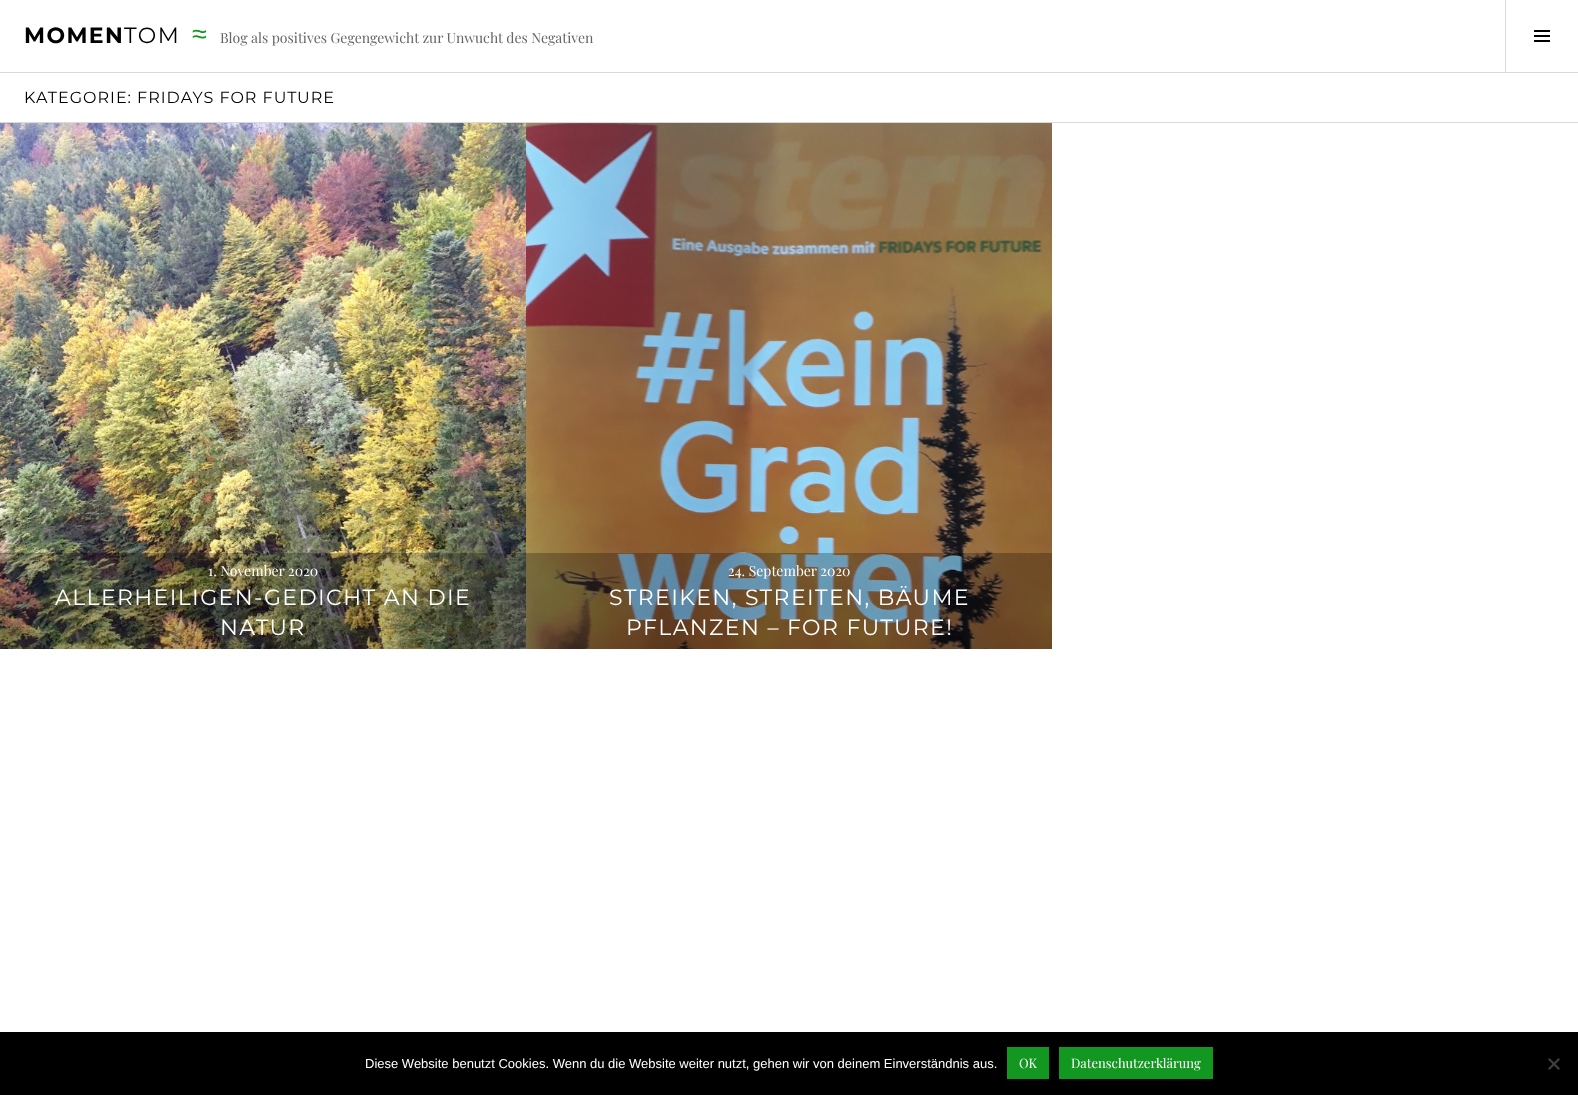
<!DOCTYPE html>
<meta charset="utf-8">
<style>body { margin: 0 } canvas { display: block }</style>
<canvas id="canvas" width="1578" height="1095"></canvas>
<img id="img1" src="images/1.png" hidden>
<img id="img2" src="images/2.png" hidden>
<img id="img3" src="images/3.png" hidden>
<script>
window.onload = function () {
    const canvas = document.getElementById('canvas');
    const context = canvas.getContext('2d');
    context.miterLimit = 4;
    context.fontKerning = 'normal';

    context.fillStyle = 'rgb(255, 255, 255)';
    context.fillRect(0, 0, 1578, 1095);
    context.fillStyle = 'rgb(217, 217, 217)';
    context.fillRect(0, 72, 1578, 1);
    context.fillRect(1505, 0, 1, 72);
    context.drawImage(document.getElementById('img1'), 1534, 30, 16, 12);
    context.fillRect(0, 122, 1578, 1);
    context.drawImage(document.getElementById('img2'), 0, 123, 526, 526);
    context.fillStyle = 'rgba(0, 0, 0, 0.25)';
    context.fillRect(0, 553, 526, 96);
    context.drawImage(document.getElementById('img3'), 526, 123, 526, 526);
    context.fillRect(526, 553, 526, 96);
    context.fillStyle = 'rgb(0, 0, 0)';
    context.fillRect(0, 1032, 1578, 63);
    context.fillStyle = 'rgb(18, 151, 33)';
    context.fillRect(1007, 1047, 42, 32);
    context.fillRect(1059, 1047, 154, 32);
    context.fillStyle = 'rgb(64, 64, 64)';
    context.beginPath();
    context.moveTo(1558.5, 1058);
    context.lineTo(1560, 1059.5);
    context.lineTo(1549.5, 1070);
    context.lineTo(1548, 1068.5);
    context.closePath();
    context.fill();
    context.beginPath();
    context.moveTo(1548, 1059.5);
    context.lineTo(1549.5, 1058);
    context.lineTo(1560, 1068.5);
    context.lineTo(1558.5, 1070);
    context.closePath();
    context.fill();
    context.letterSpacing = '1.4px';
    context.font = '100 22px "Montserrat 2"';
    context.fillStyle = 'rgb(0, 0, 0)';
    context.fillText('MOMEN', 24, 43);
    context.font = '100 22px Montserrat';
    context.fillText('TOM', 124, 43);
    context.font = '27px Liberation Sans';
    context.fillStyle = 'rgb(18, 151, 33)';
    context.fillText('≈', 192, 43);
    context.letterSpacing = '0px';
    context.font = '14px Playfair Display';
    context.fillStyle = 'rgb(102, 102, 102)';
    context.fillText('Blog als positives Gegengewicht zur Unwucht des Negativen', 220, 43);
    context.letterSpacing = '1px';
    context.font = '100 16px Montserrat';
    context.fillStyle = 'rgb(0, 0, 0)';
    context.fillText('KATEGORIE: FRIDAYS FOR FUTURE', 24, 103);
    context.letterSpacing = '0px';
    context.font = '14px Playfair Display';
    context.fillStyle = 'rgb(255, 255, 255)';
    context.fillText('1. November 2020', 208, 576);
    context.letterSpacing = '1.4px';
    context.font = '100 22px Montserrat';
    context.fillText('ALLERHEILIGEN-GEDICHT AN DIE', 55, 605);
    context.fillText('NATUR', 220, 635);
    context.letterSpacing = '0px';
    context.font = '14px Playfair Display';
    context.fillText('24. September 2020', 728, 576);
    context.letterSpacing = '1.4px';
    context.font = '100 22px Montserrat';
    context.fillText('STREIKEN, STREITEN, BÄUME', 609, 605);
    context.fillText('PFLANZEN – FOR FUTURE!', 626, 635);
    context.letterSpacing = '0px';
    context.font = '13px Liberation Sans';
    context.fillText('Diese Website benutzt Cookies. Wenn du die Website weiter nutzt, gehen wir von deinem Einverständnis aus.', 365, 1068);
    context.font = '13px Playfair Display';
    context.fillText('OK', 1019, 1068);
    context.fillText('Datenschutzerklärung', 1071, 1068);
};
</script>
